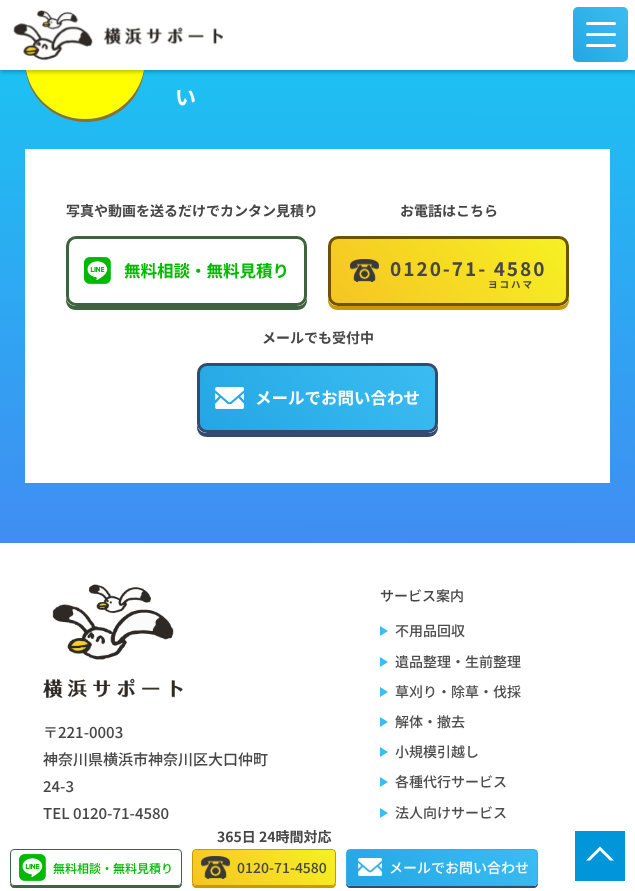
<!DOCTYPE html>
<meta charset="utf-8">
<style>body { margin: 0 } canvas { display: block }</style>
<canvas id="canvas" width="635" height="891"></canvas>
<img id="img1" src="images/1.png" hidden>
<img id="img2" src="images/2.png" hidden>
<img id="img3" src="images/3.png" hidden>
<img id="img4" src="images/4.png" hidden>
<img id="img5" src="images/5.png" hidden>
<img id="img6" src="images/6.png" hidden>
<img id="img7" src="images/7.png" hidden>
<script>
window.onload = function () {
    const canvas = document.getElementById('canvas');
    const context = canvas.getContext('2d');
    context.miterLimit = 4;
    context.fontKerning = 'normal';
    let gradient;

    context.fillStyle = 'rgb(255, 255, 255)';
    context.fillRect(0, 0, 635, 891);
    gradient = context.createLinearGradient(317, -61, 318, 543);
    gradient.addColorStop(0, 'rgb(19, 207, 242)');
    gradient.addColorStop(1, 'rgb(64, 141, 242)');
    context.fillStyle = gradient;
    context.fillRect(0, 70, 635, 473);
    context.fillStyle = 'rgb(139, 113, 47)';
    context.beginPath();
    context.moveTo(25, 60);
    context.bezierCurveTo(24, 120, 101, 145, 135, 96);
    context.bezierCurveTo(142, 85, 145, 73, 145, 60);
    context.bezierCurveTo(144, 93, 118, 119, 85, 119);
    context.bezierCurveTo(52, 119, 26, 93, 25, 60);
    context.closePath();
    context.fill();
    context.fillStyle = 'rgb(255, 255, 0)';
    context.beginPath();
    context.arc(85, 59, 60, 0, 2 * Math.PI);
    context.fill();
    context.fillStyle = 'rgba(0, 0, 0, 0.25)';
    context.filter = 'blur(2px)';
    context.beginPath();
    context.rect(0, 2, 635, 70);
    context.fill();
    context.filter = 'none';
    context.fillStyle = 'rgb(255, 255, 255)';
    context.fillRect(0, 0, 635, 70);
    gradient = context.createLinearGradient(571, 60, 630, 9);
    gradient.addColorStop(0, 'rgb(36, 166, 228)');
    gradient.addColorStop(1, 'rgb(59, 189, 242)');
    context.fillStyle = gradient;
    context.beginPath();
    context.roundRect(573, 7, 55, 55, 5);
    context.fill();
    context.fillStyle = 'rgb(255, 255, 255)';
    context.beginPath();
    context.roundRect(586, 22, 30, 3, 1.5);
    context.fill();
    context.beginPath();
    context.roundRect(586, 33, 30, 3, 1.5);
    context.fill();
    context.beginPath();
    context.roundRect(586, 44, 30, 3, 1.5);
    context.fill();
    context.fillRect(25, 149, 585, 334);
    context.fillStyle = 'rgb(63, 99, 62)';
    context.beginPath();
    context.moveTo(66, 296);
    context.lineTo(66, 300);
    context.bezierCurveTo(66, 306, 70, 310, 76, 310);
    context.lineTo(297, 310);
    context.bezierCurveTo(303, 310, 307, 306, 307, 300);
    context.lineTo(307, 296);
    context.bezierCurveTo(307, 302, 303, 306, 297, 306);
    context.lineTo(76, 306);
    context.bezierCurveTo(70, 306, 66, 302, 66, 296);
    context.closePath();
    context.fill();
    context.fillStyle = 'rgb(255, 255, 255)';
    context.beginPath();
    context.roundRect(67.5, 237.5, 238, 67, 8.5);
    context.fill();
    context.strokeStyle = 'rgb(63, 99, 62)';
    context.lineWidth = 3;
    context.stroke();
    context.drawImage(document.getElementById('img1'), 84, 257, 27, 27);
    context.fillStyle = 'rgb(201, 153, 0)';
    context.beginPath();
    context.moveTo(328, 296);
    context.lineTo(328, 300);
    context.bezierCurveTo(328, 306, 332, 310, 338, 310);
    context.lineTo(559, 310);
    context.bezierCurveTo(565, 310, 569, 306, 569, 300);
    context.lineTo(569, 296);
    context.bezierCurveTo(569, 302, 565, 306, 559, 306);
    context.lineTo(338, 306);
    context.bezierCurveTo(332, 306, 328, 302, 328, 296);
    context.closePath();
    context.fill();
    gradient = context.createLinearGradient(366, 343, 531, 199);
    gradient.addColorStop(0, 'rgb(246, 196, 35)');
    gradient.addColorStop(1, 'rgb(246, 241, 35)');
    context.fillStyle = gradient;
    context.fillRect(331, 239, 235, 64);
    context.beginPath();
    context.roundRect(329.5, 237.5, 238, 67, 8.5);
    context.strokeStyle = 'rgb(109, 83, 0)';
    context.stroke();
    context.drawImage(document.getElementById('img2'), 350, 259, 29, 23);
    context.fillStyle = 'rgb(52, 75, 112)';
    context.beginPath();
    context.moveTo(197, 423);
    context.lineTo(197, 427);
    context.bezierCurveTo(197, 433, 201, 437, 207, 437);
    context.lineTo(428, 437);
    context.bezierCurveTo(434, 437, 438, 433, 438, 427);
    context.lineTo(438, 423);
    context.bezierCurveTo(438, 429, 434, 433, 428, 433);
    context.lineTo(207, 433);
    context.bezierCurveTo(201, 433, 197, 429, 197, 423);
    context.closePath();
    context.fill();
    gradient = context.createLinearGradient(235, 470, 400, 326);
    gradient.addColorStop(0, 'rgb(36, 166, 228)');
    gradient.addColorStop(1, 'rgb(59, 189, 242)');
    context.fillStyle = gradient;
    context.fillRect(200, 366, 235, 64);
    context.beginPath();
    context.roundRect(198.5, 364.5, 238, 67, 8.5);
    context.strokeStyle = 'rgb(52, 75, 112)';
    context.stroke();
    context.drawImage(document.getElementById('img3'), 215, 387, 29, 22);
    context.drawImage(document.getElementById('img4'), 43, 584, 140, 114);
    context.fillStyle = 'rgb(59, 189, 242)';
    context.beginPath();
    context.moveTo(380, 636);
    context.lineTo(380, 626);
    context.lineTo(388, 631);
    context.closePath();
    context.fill();
    context.beginPath();
    context.moveTo(380, 667);
    context.lineTo(380, 657);
    context.lineTo(388, 662);
    context.closePath();
    context.fill();
    context.beginPath();
    context.moveTo(380, 697);
    context.lineTo(380, 687);
    context.lineTo(388, 692);
    context.closePath();
    context.fill();
    context.beginPath();
    context.moveTo(380, 727);
    context.lineTo(380, 717);
    context.lineTo(388, 722);
    context.closePath();
    context.fill();
    context.beginPath();
    context.moveTo(380, 757);
    context.lineTo(380, 747);
    context.lineTo(388, 752);
    context.closePath();
    context.fill();
    context.beginPath();
    context.moveTo(380, 787);
    context.lineTo(380, 777);
    context.lineTo(388, 782);
    context.closePath();
    context.fill();
    context.beginPath();
    context.moveTo(380, 818);
    context.lineTo(380, 808);
    context.lineTo(388, 813);
    context.closePath();
    context.fill();
    context.drawImage(document.getElementById('img5'), 13, 10, 210, 51);
    context.fillStyle = 'rgb(63, 99, 62)';
    context.beginPath();
    context.moveTo(10, 882);
    context.lineTo(10, 884);
    context.bezierCurveTo(10, 886, 12, 888, 14, 888);
    context.lineTo(178, 888);
    context.bezierCurveTo(180, 888, 182, 886, 182, 884);
    context.lineTo(182, 882);
    context.bezierCurveTo(182, 884, 180, 886, 178, 886);
    context.lineTo(14, 886);
    context.bezierCurveTo(12, 886, 10, 884, 10, 882);
    context.closePath();
    context.fill();
    context.fillStyle = 'rgb(255, 255, 255)';
    context.beginPath();
    context.roundRect(10.5, 849.5, 171, 36, 3.5);
    context.fill();
    context.strokeStyle = 'rgb(63, 99, 62)';
    context.lineWidth = 1;
    context.stroke();
    context.drawImage(document.getElementById('img1'), 19, 854, 27, 27);
    context.fillStyle = 'rgb(201, 153, 0)';
    context.beginPath();
    context.moveTo(192, 882);
    context.lineTo(192, 884);
    context.bezierCurveTo(192, 886, 194, 888, 196, 888);
    context.lineTo(332, 888);
    context.bezierCurveTo(334, 888, 336, 886, 336, 884);
    context.lineTo(336, 882);
    context.bezierCurveTo(336, 884, 334, 886, 332, 886);
    context.lineTo(196, 886);
    context.bezierCurveTo(194, 886, 192, 884, 192, 882);
    context.closePath();
    context.fill();
    context.save();
    context.beginPath();
    context.roundRect(192, 849, 144, 37, 4);
    context.clip();
    gradient = context.createLinearGradient(215, 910, 313, 825);
    gradient.addColorStop(0, 'rgb(246, 196, 35)');
    gradient.addColorStop(1, 'rgb(246, 241, 35)');
    context.fillStyle = gradient;
    context.fillRect(193, 850, 142, 35);
    context.restore();
    context.beginPath();
    context.roundRect(192.5, 849.5, 143, 36, 3.5);
    context.strokeStyle = 'rgb(201, 153, 0)';
    context.stroke();
    context.drawImage(document.getElementById('img6'), 201, 856, 29, 23);
    context.fillStyle = 'rgb(52, 75, 112)';
    context.beginPath();
    context.moveTo(346, 882);
    context.lineTo(346, 884);
    context.bezierCurveTo(346, 886, 348, 888, 350, 888);
    context.lineTo(534, 888);
    context.bezierCurveTo(536, 888, 538, 886, 538, 884);
    context.lineTo(538, 882);
    context.bezierCurveTo(538, 884, 536, 886, 534, 886);
    context.lineTo(350, 886);
    context.bezierCurveTo(348, 886, 346, 884, 346, 882);
    context.closePath();
    context.fill();
    context.save();
    context.beginPath();
    context.roundRect(346, 849, 192, 37, 4);
    context.clip();
    gradient = context.createLinearGradient(379, 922, 505, 813);
    gradient.addColorStop(0, 'rgb(36, 166, 228)');
    gradient.addColorStop(1, 'rgb(59, 189, 242)');
    context.fillStyle = gradient;
    context.fillRect(347, 850, 190, 35);
    context.restore();
    context.beginPath();
    context.roundRect(346.5, 849.5, 191, 36, 3.5);
    context.strokeStyle = 'rgb(47, 176, 235)';
    context.stroke();
    context.drawImage(document.getElementById('img7'), 358, 858, 24, 18);
    context.fillStyle = 'rgb(0, 150, 217)';
    context.fillRect(575, 831, 50, 50);
    context.fillStyle = 'rgb(255, 255, 255)';
    context.beginPath();
    context.moveTo(586, 860.5);
    context.lineTo(600, 846.5);
    context.lineTo(600, 850.5);
    context.lineTo(590, 860.5);
    context.closePath();
    context.moveTo(600, 846.5);
    context.lineTo(614, 860.5);
    context.lineTo(610, 860.5);
    context.lineTo(600, 850.5);
    context.closePath();
    context.fill();
    context.font = 'bold 21px Noto Sans JP';
    context.fillText('い', 175, 105);
    context.font = 'bold 14px Noto Sans JP';
    context.fillStyle = 'rgb(70, 70, 70)';
    context.fillText('写真や動画を送るだけでカンタン見積り', 66, 216);
    context.font = 'bold 16.5px Noto Sans JP';
    context.fillStyle = 'rgb(0, 185, 0)';
    context.fillText('無料相談・無料見積り', 124, 277);
    context.font = 'bold 14px Noto Sans JP';
    context.fillStyle = 'rgb(70, 70, 70)';
    context.fillText('お電話はこちら', 400, 216);
    context.letterSpacing = '2px';
    context.font = 'bold 19px Noto Sans JP';
    context.fillText('0120-71- 4580', 390, 276);
    context.font = 'bold 9.5px Noto Sans JP';
    context.fillText('ヨコハマ', 488, 288);
    context.letterSpacing = '0px';
    context.font = 'bold 14px Noto Sans JP';
    context.fillText('メールでも受付中', 262, 343);
    context.font = 'bold 16.5px Noto Sans JP';
    context.fillStyle = 'rgb(255, 255, 255)';
    context.fillText('メールでお問い合わせ', 255, 404);
    context.font = '500 15px Noto Sans JP';
    context.fillStyle = 'rgb(70, 70, 70)';
    context.fillText('〒221-0003', 43, 738);
    context.fillText('神奈川県横浜市神奈川区大口仲町', 43, 765);
    context.fillText('24-3', 43, 792);
    context.fillText('TEL 0120-71-4580', 43, 819);
    context.font = '500 14px Noto Sans JP';
    context.fillText('サービス案内', 380, 601);
    context.fillStyle = 'rgb(77, 77, 77)';
    context.fillText('不用品回収', 395, 636);
    context.fillText('遺品整理・生前整理', 395, 667);
    context.fillText('草刈り・除草・伐採', 395, 697);
    context.fillText('解体・撤去', 395, 727);
    context.fillText('小規模引越し', 395, 757);
    context.fillText('各種代行サービス', 395, 787);
    context.fillText('法人向けサービス', 395, 818);
    context.fillStyle = 'rgb(255, 255, 255)';
    context.fillRect(76, 819, 358, 1);
    context.font = 'bold 14px Noto Sans JP';
    context.fillStyle = 'rgb(70, 70, 70)';
    context.fillText('365日 24時間対応', 217, 842);
    context.font = '500 12px Noto Sans JP';
    context.fillStyle = 'rgb(0, 185, 0)';
    context.fillText('無料相談・無料見積り', 53, 873);
    context.font = '500 14px Noto Sans JP';
    context.fillStyle = 'rgb(70, 70, 70)';
    context.fillText('0120-71-4580', 237, 873);
    context.fillStyle = 'rgb(255, 255, 255)';
    context.fillText('メールでお問い合わせ', 389, 873);
};
</script>
